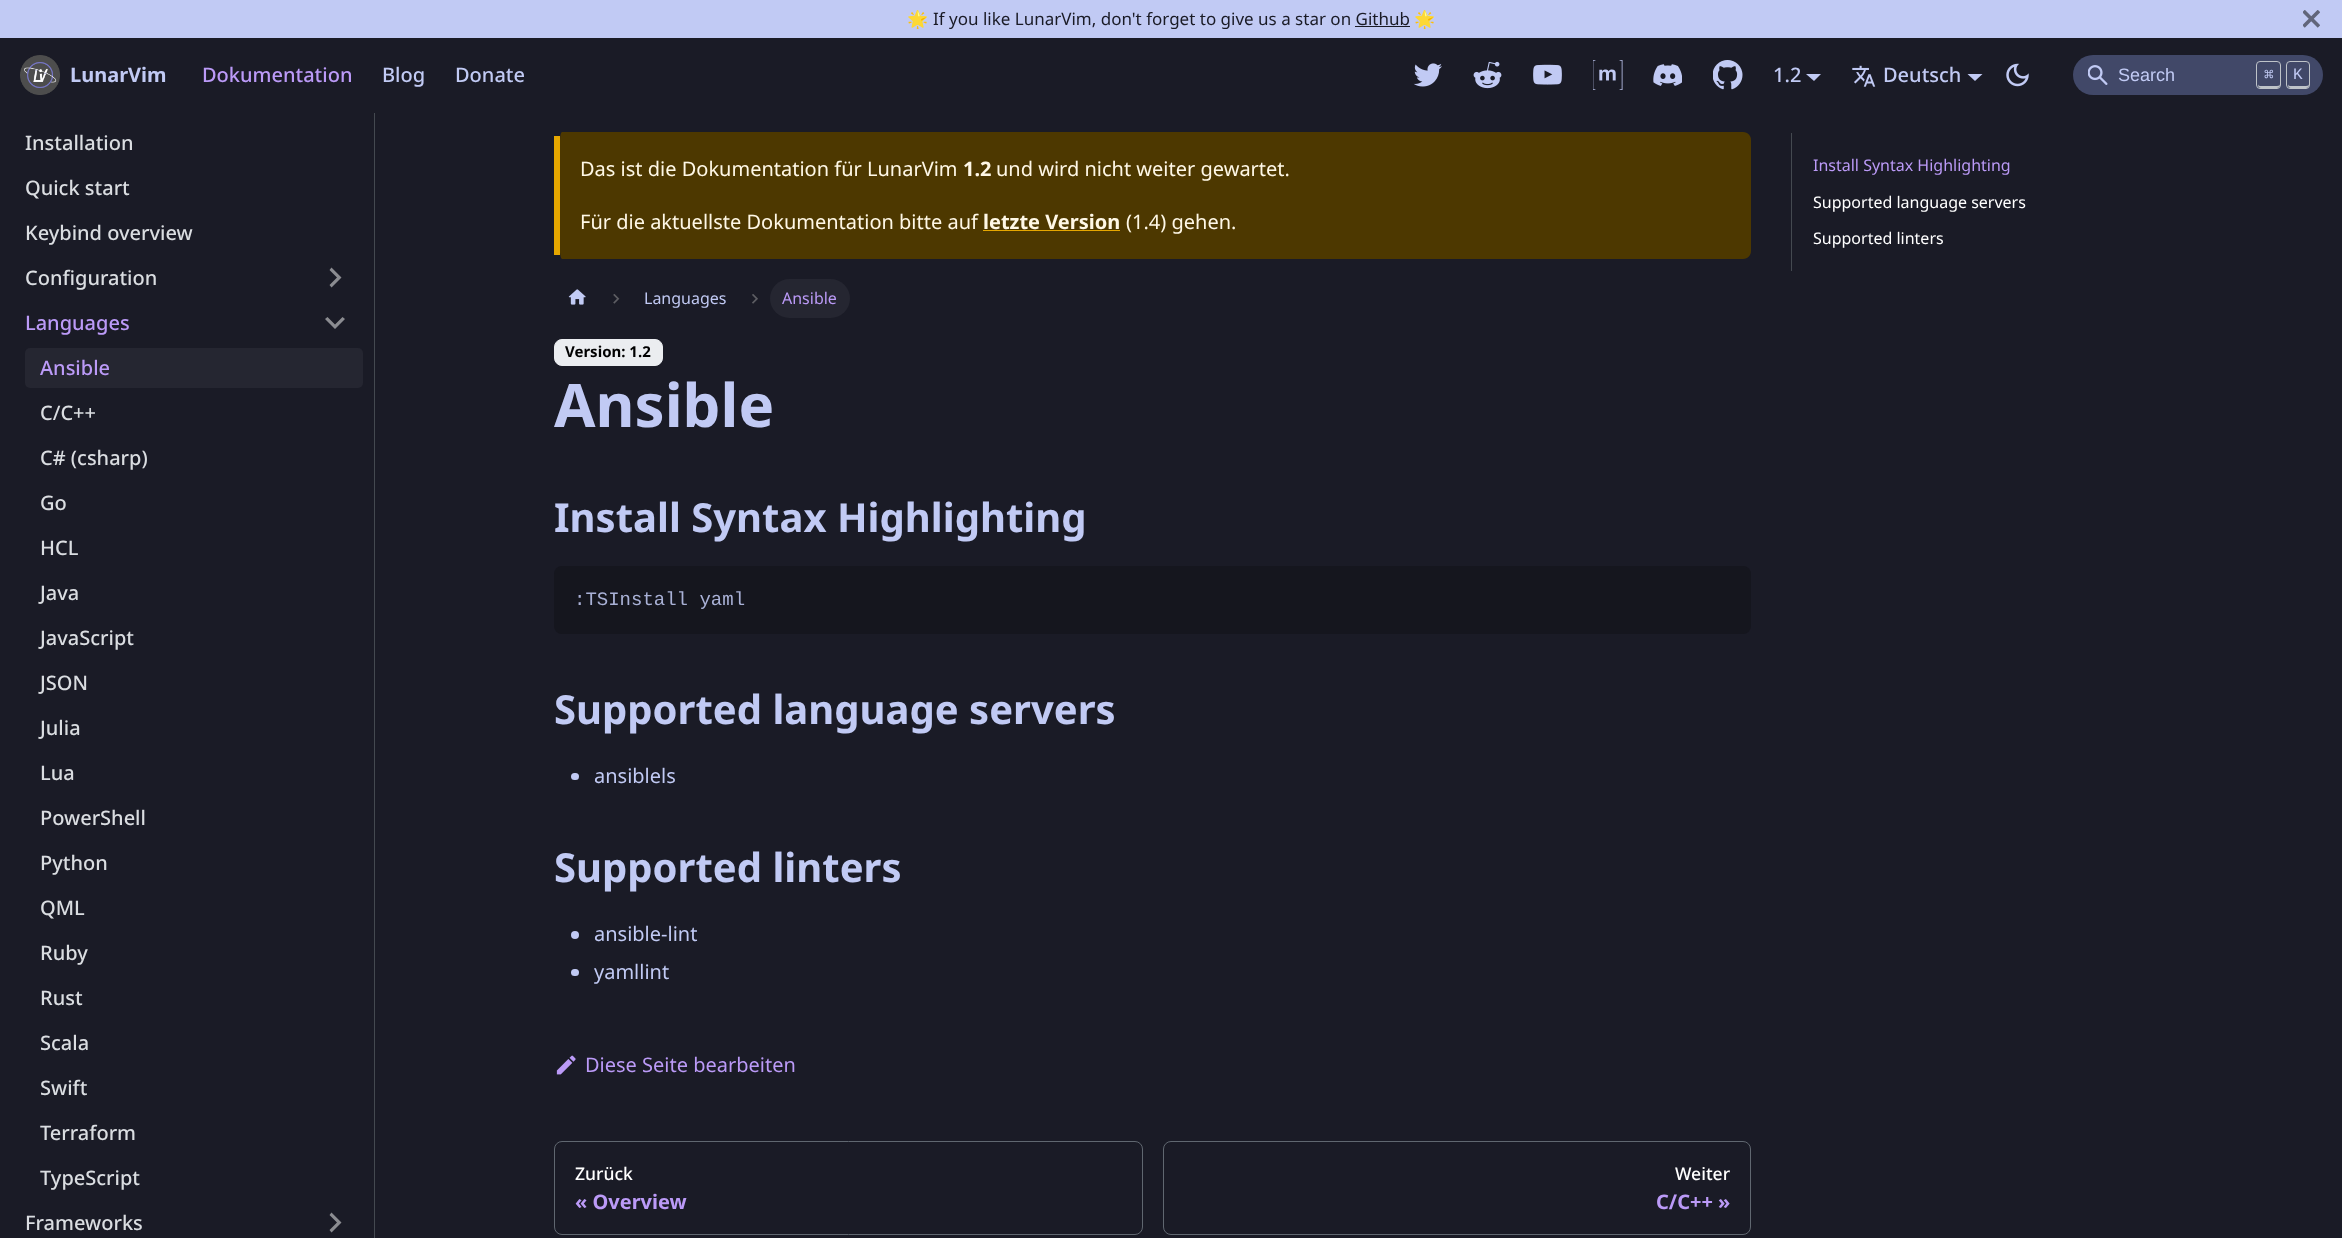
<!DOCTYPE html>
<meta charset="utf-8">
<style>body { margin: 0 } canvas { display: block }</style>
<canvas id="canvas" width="2342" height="1238"></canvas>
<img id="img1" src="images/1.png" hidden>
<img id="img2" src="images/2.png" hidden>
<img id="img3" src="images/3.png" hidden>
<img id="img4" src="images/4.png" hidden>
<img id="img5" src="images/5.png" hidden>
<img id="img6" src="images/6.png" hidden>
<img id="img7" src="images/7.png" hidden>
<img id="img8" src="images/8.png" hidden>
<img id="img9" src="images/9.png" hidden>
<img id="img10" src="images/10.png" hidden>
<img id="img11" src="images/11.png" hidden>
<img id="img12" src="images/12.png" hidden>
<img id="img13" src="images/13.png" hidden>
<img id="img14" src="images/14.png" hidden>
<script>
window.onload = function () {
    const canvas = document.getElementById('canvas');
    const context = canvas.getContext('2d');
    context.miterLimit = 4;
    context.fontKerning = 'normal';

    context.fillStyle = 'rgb(26, 27, 38)';
    context.fillRect(0, 0, 2342, 1238);
    context.fillStyle = 'rgb(193, 202, 244)';
    context.fillRect(0, 0, 2342, 38);
    context.fillStyle = 'rgb(26, 27, 38)';
    context.fillRect(1355, 26, 55, 1);
    context.save();
    context.beginPath();
    context.rect(2303, 10, 17, 18);
    context.clip();
    context.beginPath();
    context.moveTo(2303.5, 11);
    context.lineTo(2319, 26.5);
    context.moveTo(2319, 11);
    context.lineTo(2303.5, 26.5);
    context.strokeStyle = 'rgb(97, 101, 122)';
    context.lineWidth = 3.6;
    context.stroke();
    context.restore();
    context.drawImage(document.getElementById('img1'), 20, 55, 40, 40);
    context.drawImage(document.getElementById('img2'), 1413, 63, 29, 24);
    context.drawImage(document.getElementById('img3'), 1473, 61, 29, 28);
    context.drawImage(document.getElementById('img4'), 1533, 64, 29, 21);
    context.drawImage(document.getElementById('img5'), 1593, 60, 30, 30);
    context.drawImage(document.getElementById('img6'), 1653, 64, 29, 22);
    context.drawImage(document.getElementById('img7'), 1713, 60, 30, 30);
    context.fillStyle = 'rgb(193, 202, 244)';
    context.beginPath();
    context.moveTo(1806, 74);
    context.lineTo(1821, 74);
    context.lineTo(1814, 81);
    context.closePath();
    context.fill();
    context.drawImage(document.getElementById('img8'), 1852, 65, 24, 22);
    context.beginPath();
    context.moveTo(1967.5, 74);
    context.lineTo(1982.5, 74);
    context.lineTo(1975, 81);
    context.closePath();
    context.fill();
    context.drawImage(document.getElementById('img9'), 2006, 63, 23, 24);
    context.fillStyle = 'rgb(65, 72, 104)';
    context.beginPath();
    context.roundRect(2073, 55, 250, 40, 20);
    context.fill();
    context.drawImage(document.getElementById('img10'), 2088, 65, 20, 20);
    context.fillStyle = 'rgb(190, 195, 201)';
    context.beginPath();
    context.moveTo(2258, 84);
    context.bezierCurveTo(2258, 88, 2259.5, 88, 2263.5, 88);
    context.lineTo(2274.5, 88);
    context.bezierCurveTo(2278.5, 88, 2280, 88, 2280, 84);
    context.bezierCurveTo(2280, 85, 2279, 86, 2277, 86);
    context.lineTo(2260, 86);
    context.bezierCurveTo(2259, 86, 2258, 85, 2258, 84);
    context.closePath();
    context.fill();
    context.beginPath();
    context.roundRect(2256.5, 61.5, 24, 27, 3.5);
    context.strokeStyle = 'rgb(190, 195, 201)';
    context.stroke();
    context.beginPath();
    context.moveTo(2288, 84);
    context.bezierCurveTo(2288, 88, 2289.5, 88, 2293, 88);
    context.lineTo(2304, 88);
    context.bezierCurveTo(2307.5, 88, 2309, 88, 2309, 84);
    context.bezierCurveTo(2309, 85, 2308, 86, 2306, 86);
    context.lineTo(2290, 86);
    context.bezierCurveTo(2289, 86, 2288, 85, 2288, 84);
    context.closePath();
    context.fill();
    context.beginPath();
    context.roundRect(2286.5, 61.5, 23, 27, 3.5);
    context.stroke();
    context.fillStyle = 'rgb(68, 73, 80)';
    context.fillRect(374, 113, 1, 1125);
    context.fillStyle = 'rgb(139, 140, 145)';
    context.beginPath();
    context.moveTo(329.5, 270);
    context.lineTo(337, 277.5);
    context.lineTo(329.5, 285);
    context.lineTo(331.5, 287.5);
    context.lineTo(341.5, 277.5);
    context.lineTo(331.5, 267.5);
    context.closePath();
    context.fill();
    context.beginPath();
    context.moveTo(342.5, 317);
    context.lineTo(335, 324.5);
    context.lineTo(327.5, 317);
    context.lineTo(325, 319);
    context.lineTo(335, 329);
    context.lineTo(345, 319);
    context.closePath();
    context.fill();
    context.fillStyle = 'rgb(37, 38, 49)';
    context.beginPath();
    context.roundRect(25, 348, 338, 40, 5);
    context.fill();
    context.fillStyle = 'rgb(139, 140, 145)';
    context.beginPath();
    context.moveTo(329.5, 1215);
    context.lineTo(337, 1222.5);
    context.lineTo(329.5, 1230);
    context.lineTo(331.5, 1232.5);
    context.lineTo(341.5, 1222.5);
    context.lineTo(331.5, 1212.5);
    context.closePath();
    context.fill();
    context.fillStyle = 'rgb(77, 56, 0)';
    context.beginPath();
    context.moveTo(562, 132);
    context.lineTo(1743, 132);
    context.bezierCurveTo(1748, 132, 1751, 136, 1751, 140);
    context.lineTo(1751, 251);
    context.bezierCurveTo(1751, 255, 1748, 259, 1743, 259);
    context.lineTo(562, 259);
    context.bezierCurveTo(561, 259, 560, 255, 560, 251);
    context.lineTo(560, 140);
    context.bezierCurveTo(560, 136, 561, 132, 562, 132);
    context.closePath();
    context.fill();
    context.fillStyle = 'rgb(230, 167, 0)';
    context.fillRect(554, 136, 6, 119);
    context.fillRect(983, 230, 137, 1);
    context.drawImage(document.getElementById('img11'), 568, 289, 18, 16);
    context.drawImage(document.getElementById('img12'), 613, 294, 7, 10);
    context.drawImage(document.getElementById('img13'), 752, 294, 6, 10);
    context.fillStyle = 'rgb(37, 38, 49)';
    context.beginPath();
    context.roundRect(770, 279, 80, 39, 19.5);
    context.fill();
    context.fillStyle = 'rgb(235, 237, 240)';
    context.beginPath();
    context.roundRect(554.5, 339.5, 108, 26, 7.5);
    context.fill();
    context.strokeStyle = 'rgb(235, 237, 240)';
    context.stroke();
    context.fillStyle = 'rgb(21, 22, 30)';
    context.beginPath();
    context.roundRect(554, 566, 1197, 68, 8);
    context.fill();
    context.fillStyle = 'rgb(193, 202, 244)';
    context.beginPath();
    context.roundRect(571, 773, 8, 7, 3.5);
    context.fill();
    context.beginPath();
    context.arc(575, 935, 4, 0, 2 * Math.PI);
    context.fill();
    context.beginPath();
    context.roundRect(571, 969, 8, 7, 3.5);
    context.fill();
    context.drawImage(document.getElementById('img14'), 556, 1055, 20, 20);
    context.beginPath();
    context.roundRect(554.5, 1141.5, 588, 93, 7.5);
    context.strokeStyle = 'rgb(96, 103, 112)';
    context.stroke();
    context.beginPath();
    context.roundRect(1163.5, 1141.5, 587, 93, 7.5);
    context.stroke();
    context.fillStyle = 'rgb(68, 73, 80)';
    context.fillRect(1791, 133, 1, 138);
    context.font = '17px Noto Color Emoji';
    context.fillStyle = 'rgb(26, 27, 38)';
    context.fillText('🌟', 907, 25);
    context.font = '17px Noto Sans';
    context.fillText('If you like LunarVim, don\'t forget to give us a star on Github', 933, 25);
    context.font = '17px Noto Color Emoji';
    context.fillText('🌟', 1414, 25);
    context.font = 'bold 20px Noto Sans';
    context.fillStyle = 'rgb(193, 202, 244)';
    context.fillText('LunarVim', 70, 82);
    context.font = '500 20px Noto Sans';
    context.fillStyle = 'rgb(187, 154, 247)';
    context.fillText('Dokumentation', 202, 82);
    context.fillStyle = 'rgb(193, 202, 244)';
    context.fillText('Blog', 382, 82);
    context.fillText('Donate', 455, 82);
    context.fillText('1.2', 1773, 82);
    context.fillText('Deutsch', 1883, 82);
    context.font = '18px Liberation Sans';
    context.fillText('Search', 2118, 81);
    context.font = '16px DejaVu Sans Mono';
    context.fillText('⌘', 2264, 80);
    context.font = '16px Liberation Mono';
    context.fillText('K', 2293, 79);
    context.font = '500 20px Noto Sans';
    context.fillStyle = 'rgb(218, 221, 225)';
    context.fillText('Installation', 25, 150);
    context.fillText('Quick start', 25, 195);
    context.fillText('Keybind overview', 25, 240);
    context.fillText('Configuration', 25, 285);
    context.fillStyle = 'rgb(187, 154, 247)';
    context.fillText('Languages', 25, 330);
    context.fillText('Ansible', 40, 375);
    context.fillStyle = 'rgb(218, 221, 225)';
    context.fillText('C/C++', 40, 420);
    context.fillText('C# (csharp)', 40, 465);
    context.fillText('Go', 40, 510);
    context.fillText('HCL', 40, 555);
    context.fillText('Java', 40, 600);
    context.fillText('JavaScript', 40, 645);
    context.fillText('JSON', 40, 690);
    context.fillText('Julia', 40, 735);
    context.fillText('Lua', 40, 780);
    context.fillText('PowerShell', 40, 825);
    context.fillText('Python', 40, 870);
    context.fillText('QML', 40, 915);
    context.fillText('Ruby', 40, 960);
    context.fillText('Rust', 40, 1005);
    context.fillText('Scala', 40, 1050);
    context.fillText('Swift', 40, 1095);
    context.fillText('Terraform', 40, 1140);
    context.fillText('TypeScript', 40, 1185);
    context.fillText('Frameworks', 25, 1230);
    context.font = '20px Noto Sans';
    context.fillStyle = 'rgb(255, 248, 230)';
    context.fillText('Das ist die Dokumentation für LunarVim', 580, 176);
    context.font = 'bold 20px Noto Sans';
    context.fillText('1.2', 963, 176);
    context.font = '20px Noto Sans';
    context.fillText('und wird nicht weiter gewartet.', 996, 176);
    context.fillText('Für die aktuellste Dokumentation bitte auf', 580, 229);
    context.font = 'bold 20px Noto Sans';
    context.fillText('letzte Version', 983, 229);
    context.font = '20px Noto Sans';
    context.fillText('(1.4) gehen.', 1126, 229);
    context.font = '16px Noto Sans';
    context.fillStyle = 'rgb(193, 202, 244)';
    context.fillText('Languages', 644, 304);
    context.fillStyle = 'rgb(187, 154, 247)';
    context.fillText('Ansible', 782, 304);
    context.font = 'bold 15px Noto Sans';
    context.fillStyle = 'rgb(0, 0, 0)';
    context.fillText('Version: 1.2', 565, 357);
    context.font = 'bold 60px Noto Sans';
    context.fillStyle = 'rgb(193, 202, 244)';
    context.fillText('Ansible', 554, 427);
    context.font = 'bold 40px Noto Sans';
    context.fillText('Install Syntax Highlighting', 554, 532);
    context.font = '19px Liberation Mono';
    context.fillStyle = 'rgb(169, 177, 214)';
    context.fillText(':TSInstall yaml', 574, 605);
    context.font = 'bold 40px Noto Sans';
    context.fillStyle = 'rgb(193, 202, 244)';
    context.fillText('Supported language servers', 554, 724);
    context.font = '20px Noto Sans';
    context.fillText('ansiblels', 594, 783);
    context.font = 'bold 40px Noto Sans';
    context.fillText('Supported linters', 554, 882);
    context.font = '20px Noto Sans';
    context.fillText('ansible-lint', 594, 941);
    context.fillText('yamllint', 594, 979);
    context.fillStyle = 'rgb(187, 154, 247)';
    context.fillText('Diese Seite bearbeiten', 585, 1072);
    context.font = '500 17.5px Noto Sans';
    context.fillStyle = 'rgb(255, 255, 255)';
    context.fillText('Zurück', 575, 1180);
    context.font = 'bold 20px Noto Sans';
    context.fillStyle = 'rgb(187, 154, 247)';
    context.fillText('« Overview', 575, 1209);
    context.font = '500 17.5px Noto Sans';
    context.fillStyle = 'rgb(255, 255, 255)';
    context.fillText('Weiter', 1675, 1180);
    context.font = 'bold 20px Noto Sans';
    context.fillStyle = 'rgb(187, 154, 247)';
    context.fillText('C/C++ »', 1656, 1209);
    context.font = '16px Noto Sans';
    context.fillText('Install Syntax Highlighting', 1813, 171);
    context.fillStyle = 'rgb(255, 255, 255)';
    context.fillText('Supported language servers', 1813, 208);
    context.fillText('Supported linters', 1813, 244);
};
</script>
